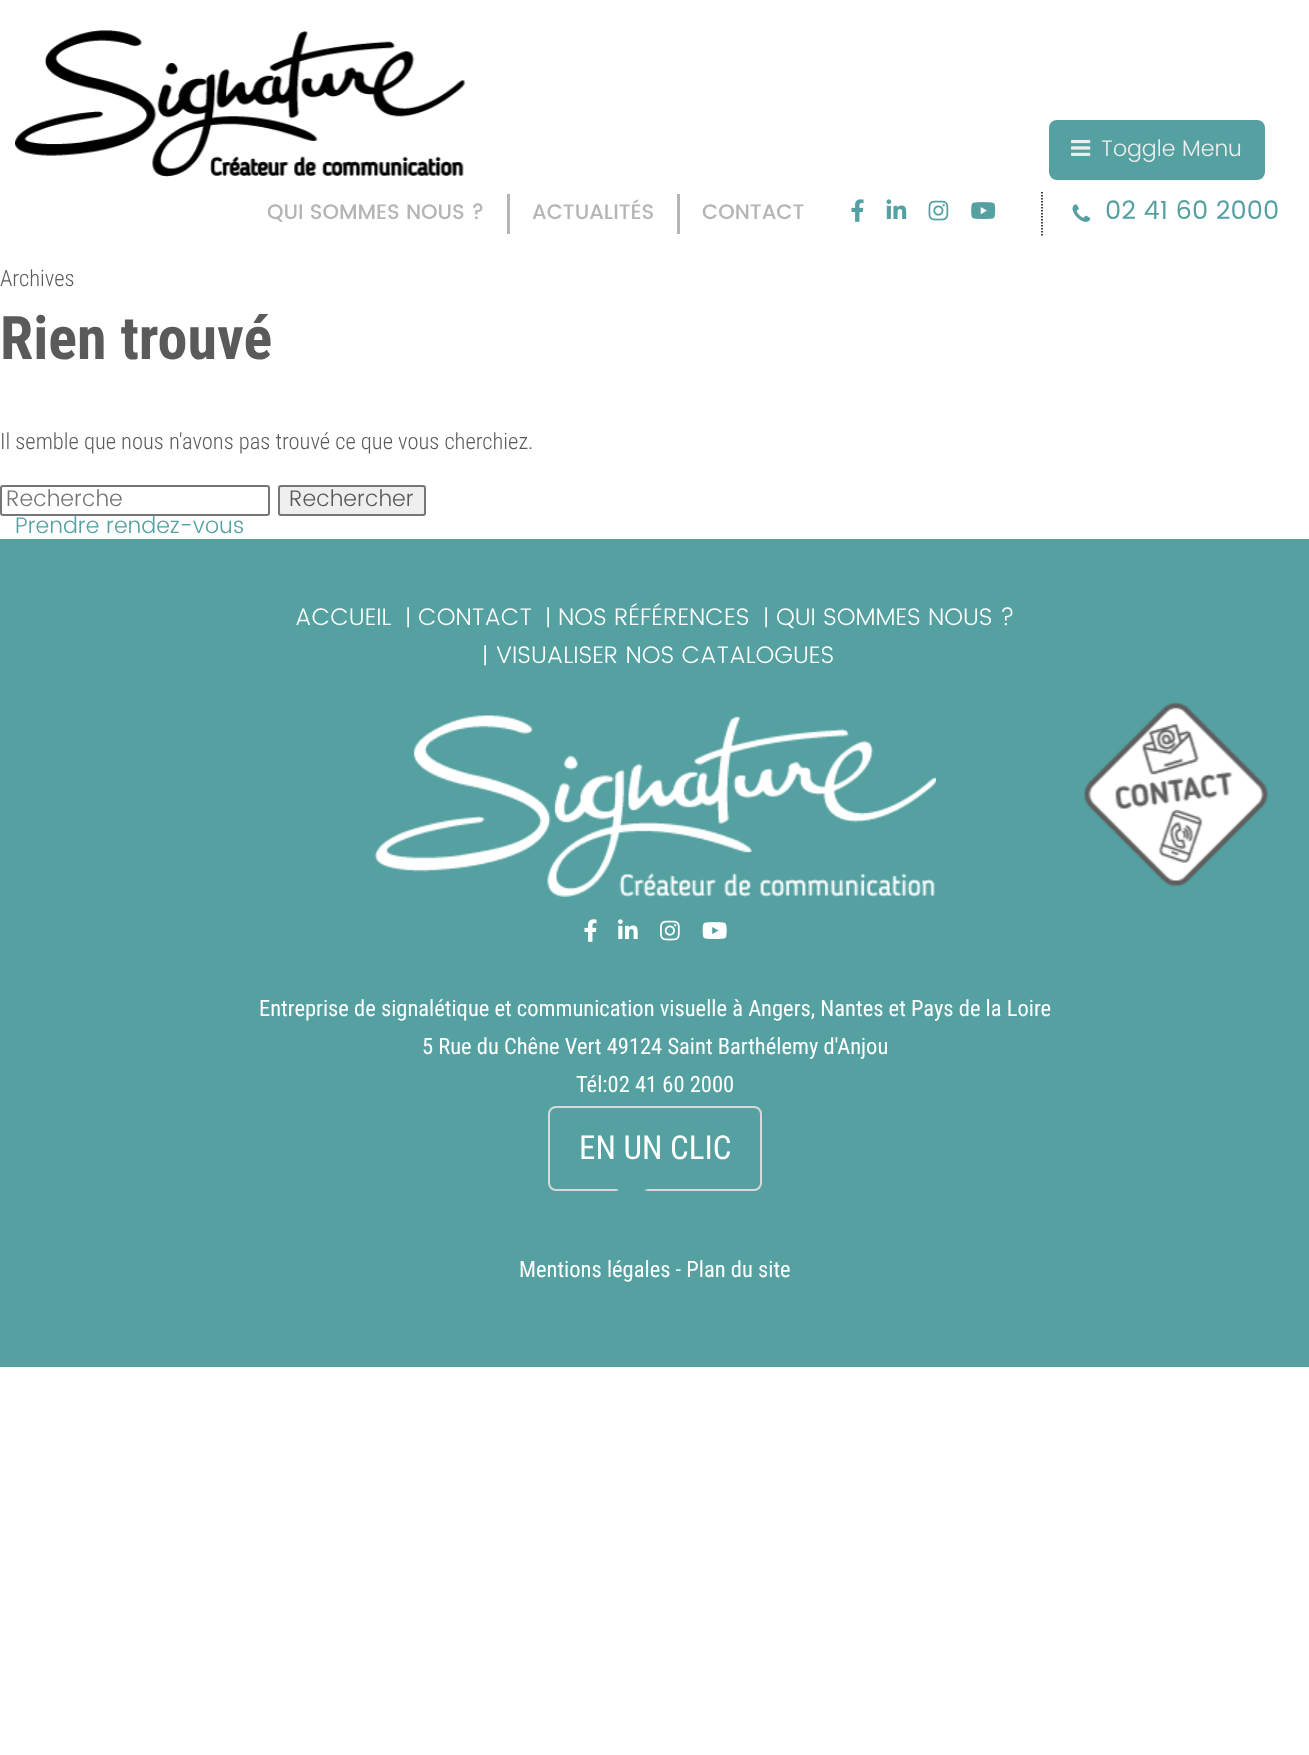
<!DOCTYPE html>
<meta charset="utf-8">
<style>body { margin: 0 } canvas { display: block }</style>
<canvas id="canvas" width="1309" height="1755"></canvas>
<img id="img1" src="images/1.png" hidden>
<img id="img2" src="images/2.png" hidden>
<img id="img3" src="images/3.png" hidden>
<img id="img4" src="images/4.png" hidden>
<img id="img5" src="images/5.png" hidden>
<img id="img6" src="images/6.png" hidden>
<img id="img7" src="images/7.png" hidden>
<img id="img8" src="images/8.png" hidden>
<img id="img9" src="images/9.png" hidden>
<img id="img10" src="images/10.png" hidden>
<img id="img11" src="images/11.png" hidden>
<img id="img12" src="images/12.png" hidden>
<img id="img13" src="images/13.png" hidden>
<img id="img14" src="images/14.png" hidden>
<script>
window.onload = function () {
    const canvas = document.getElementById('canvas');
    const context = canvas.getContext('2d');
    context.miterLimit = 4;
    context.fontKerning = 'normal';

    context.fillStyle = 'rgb(255, 255, 255)';
    context.fillRect(0, 0, 1309, 1755);
    context.fillStyle = 'rgb(85, 160, 161)';
    context.beginPath();
    context.roundRect(1049, 120, 216, 60, 8);
    context.fill();
    context.drawImage(document.getElementById('img1'), 1071, 139, 20, 17);
    context.drawImage(document.getElementById('img2'), 15, 30, 450, 147);
    context.fillStyle = 'rgb(180, 181, 182)';
    context.fillRect(507, 194, 3, 40);
    context.fillRect(677, 194, 3, 40);
    context.drawImage(document.getElementById('img3'), 851, 199, 13, 23);
    context.drawImage(document.getElementById('img4'), 886, 199, 21, 20);
    context.drawImage(document.getElementById('img5'), 928, 200, 21, 21);
    context.drawImage(document.getElementById('img6'), 971, 202, 25, 17);
    context.beginPath();
    context.moveTo(1042, 192);
    context.lineTo(1042, 237);
    context.strokeStyle = 'rgb(0, 0, 0)';
    context.lineWidth = 1.5;
    context.setLineDash([1.5, 1.5]);
    context.stroke();
    context.drawImage(document.getElementById('img7'), 1072, 204, 19, 18);
    context.beginPath();
    context.roundRect(1, 486, 268, 29, 2);
    context.strokeStyle = 'rgb(118, 118, 118)';
    context.lineWidth = 2;
    context.setLineDash([]);
    context.stroke();
    context.fillStyle = 'rgb(239, 239, 239)';
    context.beginPath();
    context.roundRect(279, 486, 146, 29, 2);
    context.fill();
    context.stroke();
    context.fillStyle = 'rgb(85, 160, 161)';
    context.fillRect(0, 539, 1309, 828);
    context.drawImage(document.getElementById('img8'), 374, 715, 562, 182);
    context.drawImage(document.getElementById('img9'), 584, 919, 13, 23);
    context.drawImage(document.getElementById('img10'), 618, 919, 20, 20);
    context.drawImage(document.getElementById('img11'), 660, 920, 20, 21);
    context.drawImage(document.getElementById('img12'), 702, 922, 25, 17);
    context.beginPath();
    context.roundRect(549, 1107, 212, 83, 7);
    context.strokeStyle = 'rgb(217, 217, 217)';
    context.stroke();
    context.drawImage(document.getElementById('img13'), 616, 1189, 33, 2);
    context.drawImage(document.getElementById('img14'), 1084, 702, 184, 185);
    context.font = '300 22.5px Poppins';
    context.fillStyle = 'rgb(238, 238, 238)';
    context.fillText('Toggle Menu', 1101, 156);
    context.font = '500 21px Poppins';
    context.fillStyle = 'rgb(180, 181, 182)';
    context.fillText('QUI SOMMES NOUS ?', 267, 219);
    context.fillText('ACTUALITÉS', 532, 219);
    context.fillText('CONTACT', 702, 219);
    context.font = '25.5px Poppins';
    context.fillStyle = 'rgb(85, 160, 161)';
    context.fillText('02 41 60 2000', 1105, 219);
    context.font = '300 22.5px Roboto Condensed';
    context.fillStyle = 'rgb(90, 90, 90)';
    context.fillText('Archives', 0, 286);
    context.font = 'bold 60px Roboto Condensed';
    context.fillText('Rien trouvé', 0, 359);
    context.font = '300 22.5px Roboto Condensed';
    context.fillText('Il semble que nous n\'avons pas trouvé ce que vous cherchiez.', 0, 449);
    context.font = '300 22.5px Poppins';
    context.fillStyle = 'rgb(117, 117, 117)';
    context.fillText('Recherche', 6, 506);
    context.fillStyle = 'rgb(90, 90, 90)';
    context.fillText('Rechercher', 289, 506);
    context.fillStyle = 'rgb(85, 160, 161)';
    context.fillText('Prendre rendez-vous', 15, 533);
    context.font = '300 24px Poppins';
    context.fillStyle = 'rgb(255, 255, 255)';
    context.fillText('ACCUEIL', 295, 625);
    context.font = '300 22.5px Poppins';
    context.fillText('|', 405, 625);
    context.font = '300 24px Poppins';
    context.fillText('CONTACT', 418, 625);
    context.font = '300 22.5px Poppins';
    context.fillText('|', 545, 625);
    context.font = '300 24px Poppins';
    context.fillText('NOS RÉFÉRENCES', 558, 625);
    context.font = '300 22.5px Poppins';
    context.fillText('|', 763, 625);
    context.font = '300 24px Poppins';
    context.fillText('QUI SOMMES NOUS ?', 776, 625);
    context.font = '300 22.5px Poppins';
    context.fillText('|', 482, 663);
    context.font = '300 24px Poppins';
    context.fillText('VISUALISER NOS CATALOGUES', 496, 663);
    context.font = '22.5px Roboto Condensed';
    context.fillText('Entreprise de signalétique et communication visuelle à Angers, Nantes et Pays de la Loire', 259, 1016);
    context.fillText('5 Rue du Chêne Vert 49124 Saint Barthélemy d\'Anjou', 422, 1054);
    context.fillText('Tél:02 41 60 2000', 576, 1092);
    context.font = '33px Roboto Condensed';
    context.fillText('EN UN CLIC', 579, 1159);
    context.font = '22.5px Roboto Condensed';
    context.fillText('Mentions légales - Plan du site', 519, 1277);
};
</script>
